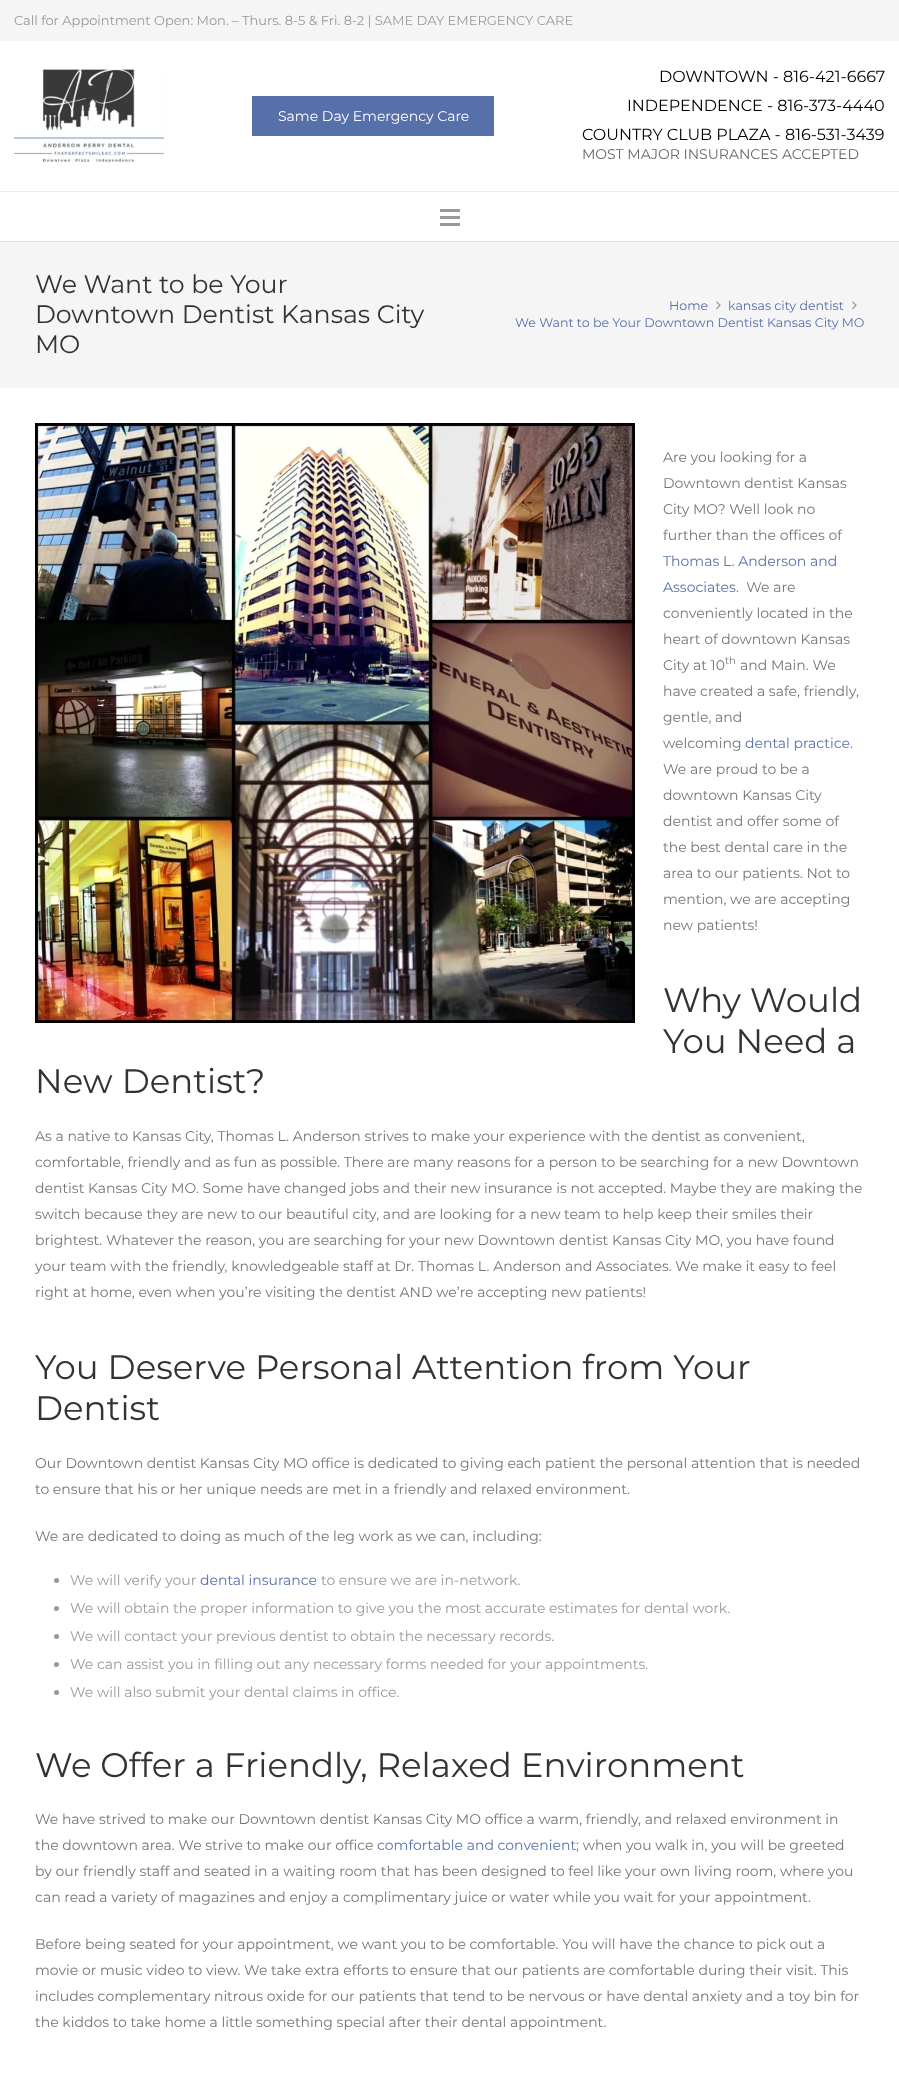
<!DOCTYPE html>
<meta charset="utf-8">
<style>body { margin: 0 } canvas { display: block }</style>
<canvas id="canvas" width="899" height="2092"></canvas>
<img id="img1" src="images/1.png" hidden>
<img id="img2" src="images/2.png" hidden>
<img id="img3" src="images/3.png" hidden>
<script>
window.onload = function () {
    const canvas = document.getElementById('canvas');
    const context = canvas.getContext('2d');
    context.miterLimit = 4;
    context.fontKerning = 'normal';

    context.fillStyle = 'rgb(255, 255, 255)';
    context.fillRect(0, 0, 899, 2092);
    context.fillStyle = 'rgb(245, 245, 245)';
    context.fillRect(0, 0, 899, 388);
    context.fillStyle = 'rgb(255, 255, 255)';
    context.fillRect(0, 41, 899, 150);
    context.drawImage(document.getElementById('img1'), 14, 69, 150, 94);
    context.fillStyle = 'rgb(88, 112, 170)';
    context.fillRect(252, 96, 242, 40);
    context.fillStyle = 'rgb(225, 225, 225)';
    context.fillRect(0, 241, 899, 1);
    context.fillStyle = 'rgb(255, 255, 255)';
    context.fillRect(0, 192, 899, 49);
    context.fillStyle = 'rgb(238, 238, 238)';
    context.fillRect(0, 191, 899, 1);
    context.fillStyle = 'rgb(153, 153, 153)';
    context.fillRect(440, 216, 20, 3);
    context.fillRect(440, 209, 20, 3);
    context.fillRect(440, 223, 20, 3);
    context.drawImage(document.getElementById('img2'), 716, 301, 5, 9);
    context.drawImage(document.getElementById('img2'), 852, 301, 5, 9);
    context.drawImage(document.getElementById('img3'), 35, 423, 600, 600);
    context.beginPath();
    context.arc(56.5, 1580.5, 2.5, 0, 2 * Math.PI);
    context.fill();
    context.beginPath();
    context.arc(56.5, 1608.5, 2.5, 0, 2 * Math.PI);
    context.fill();
    context.beginPath();
    context.arc(56.5, 1636.5, 2.5, 0, 2 * Math.PI);
    context.fill();
    context.beginPath();
    context.arc(56.5, 1664.5, 2.5, 0, 2 * Math.PI);
    context.fill();
    context.beginPath();
    context.arc(56.5, 1692.5, 2.5, 0, 2 * Math.PI);
    context.fill();
    context.font = '100 13px Montserrat';
    context.fillText('Call for Appointment Open: Mon. – Thurs. 8-5 & Fri. 8-2 | SAME DAY EMERGENCY CARE', 14, 25);
    context.font = '100 14px Montserrat';
    context.fillStyle = 'rgb(255, 255, 255)';
    context.fillText('Same Day Emergency Care', 278, 121);
    context.font = '100 16px Montserrat';
    context.fillStyle = 'rgb(0, 0, 0)';
    context.fillText('DOWNTOWN - 816-421-6667', 659, 82);
    context.fillText('INDEPENDENCE - 816-373-4440', 627, 111);
    context.fillText('COUNTRY CLUB PLAZA - 816-531-3439', 582, 140);
    context.font = '100 14px Montserrat';
    context.fillStyle = 'rgb(102, 102, 102)';
    context.fillText('MOST MAJOR INSURANCES ACCEPTED', 582, 159);
    context.font = '100 25.25px Montserrat';
    context.fillStyle = 'rgb(51, 51, 51)';
    context.fillText('We Want to be Your', 35, 293);
    context.fillText('Downtown Dentist Kansas City', 35, 323);
    context.fillText('MO', 35, 353);
    context.font = '100 12.6px Montserrat';
    context.fillStyle = 'rgb(88, 112, 170)';
    context.fillText('Home', 669, 310);
    context.fillText('kansas city dentist', 728, 310);
    context.fillText('We Want to be Your Downtown Dentist Kansas City MO', 515, 327);
    context.font = '100 14px Montserrat';
    context.fillStyle = 'rgb(113, 119, 116)';
    context.fillText('Are you looking for a', 663, 462);
    context.fillText('Downtown dentist Kansas', 663, 488);
    context.fillText('City MO? Well look no', 663, 514);
    context.fillText('further than the offices of', 663, 540);
    context.fillStyle = 'rgb(88, 112, 170)';
    context.fillText('Thomas L. Anderson and', 663, 566);
    context.fillText('Associates', 663, 592);
    context.fillStyle = 'rgb(113, 119, 116)';
    context.fillText('.  We are', 736, 592);
    context.fillText('conveniently located in the', 663, 618);
    context.fillText('heart of downtown Kansas', 663, 644);
    context.fillText('City at 10', 663, 670);
    context.font = '100 10px Montserrat';
    context.fillText('th', 725, 664);
    context.font = '100 14px Montserrat';
    context.fillText('and Main. We', 740, 670);
    context.fillText('have created a safe, friendly,', 663, 696);
    context.fillText('gentle, and', 663, 722);
    context.fillText('welcoming', 663, 748);
    context.fillStyle = 'rgb(88, 112, 170)';
    context.fillText('dental practice', 745, 748);
    context.fillStyle = 'rgb(113, 119, 116)';
    context.fillText('.', 850, 748);
    context.fillText('We are proud to be a', 663, 774);
    context.fillText('downtown Kansas City', 663, 800);
    context.fillText('dentist and offer some of', 663, 826);
    context.fillText('the best dental care in the', 663, 852);
    context.fillText('area to our patients. Not to', 663, 878);
    context.fillText('mention, we are accepting', 663, 904);
    context.fillText('new patients!', 663, 930);
    context.font = '100 34px Montserrat';
    context.fillStyle = 'rgb(51, 51, 51)';
    context.fillText('Why Would', 663, 1012);
    context.fillText('You Need a', 663, 1053);
    context.fillText('New Dentist?', 35, 1093);
    context.font = '100 14px Montserrat';
    context.fillStyle = 'rgb(113, 119, 116)';
    context.fillText('As a native to Kansas City, Thomas L. Anderson strives to make your experience with the dentist as convenient,', 35, 1141);
    context.fillText('comfortable, friendly and as fun as possible. There are many reasons for a person to be searching for a new Downtown', 35, 1167);
    context.fillText('dentist Kansas City MO. Some have changed jobs and their new insurance is not accepted. Maybe they are making the', 35, 1193);
    context.fillText('switch because they are new to our beautiful city, and are looking for a new team to help keep their smiles their', 35, 1219);
    context.fillText('brightest. Whatever the reason, you are searching for your new Downtown dentist Kansas City MO, you have found', 35, 1245);
    context.fillText('your team with the friendly, knowledgeable staff at Dr. Thomas L. Anderson and Associates. We make it easy to feel', 35, 1271);
    context.fillText('right at home, even when you’re visiting the dentist AND we’re accepting new patients!', 35, 1297);
    context.font = '100 34px Montserrat';
    context.fillStyle = 'rgb(51, 51, 51)';
    context.fillText('You Deserve Personal Attention from Your', 35, 1379);
    context.fillText('Dentist', 35, 1420);
    context.font = '100 14px Montserrat';
    context.fillStyle = 'rgb(113, 119, 116)';
    context.fillText('Our Downtown dentist Kansas City MO office is dedicated to giving each patient the personal attention that is needed', 35, 1468);
    context.fillText('to ensure that his or her unique needs are met in a friendly and relaxed environment.', 35, 1494);
    context.fillText('We are dedicated to doing as much of the leg work as we can, including:', 35, 1541);
    context.fillStyle = 'rgb(153, 153, 153)';
    context.fillText('We will verify your', 70, 1585);
    context.fillStyle = 'rgb(88, 112, 170)';
    context.fillText('dental insurance', 200, 1585);
    context.fillStyle = 'rgb(153, 153, 153)';
    context.fillText('to ensure we are in-network.', 321, 1585);
    context.fillText('We will obtain the proper information to give you the most accurate estimates for dental work.', 70, 1613);
    context.fillText('We will contact your previous dentist to obtain the necessary records.', 70, 1641);
    context.fillText('We can assist you in filling out any necessary forms needed for your appointments.', 70, 1669);
    context.fillText('We will also submit your dental claims in office.', 70, 1697);
    context.font = '100 34px Montserrat';
    context.fillStyle = 'rgb(51, 51, 51)';
    context.fillText('We Offer a Friendly, Relaxed Environment', 35, 1777);
    context.font = '100 14px Montserrat';
    context.fillStyle = 'rgb(113, 119, 116)';
    context.fillText('We have strived to make our Downtown dentist Kansas City MO office a warm, friendly, and relaxed environment in', 35, 1824);
    context.fillText('the downtown area. We strive to make our office', 35, 1850);
    context.fillStyle = 'rgb(88, 112, 170)';
    context.fillText('comfortable and convenient', 377, 1850);
    context.fillStyle = 'rgb(113, 119, 116)';
    context.fillText('; when you walk in, you will be greeted', 576, 1850);
    context.fillText('by our friendly staff and seated in a waiting room that has been designed to feel like your own living room, where you', 35, 1876);
    context.fillText('can read a variety of magazines and enjoy a complimentary juice or water while you wait for your appointment.', 35, 1902);
    context.fillText('Before being seated for your appointment, we want you to be comfortable. You will have the chance to pick out a', 35, 1949);
    context.fillText('movie or music video to view. We take extra efforts to ensure that our patients are comfortable during their visit. This', 35, 1975);
    context.fillText('includes complementary nitrous oxide for our patients that tend to be nervous or have dental anxiety and a toy bin for', 35, 2001);
    context.fillText('the kiddos to take home a little something special after their dental appointment.', 35, 2027);
};
</script>
